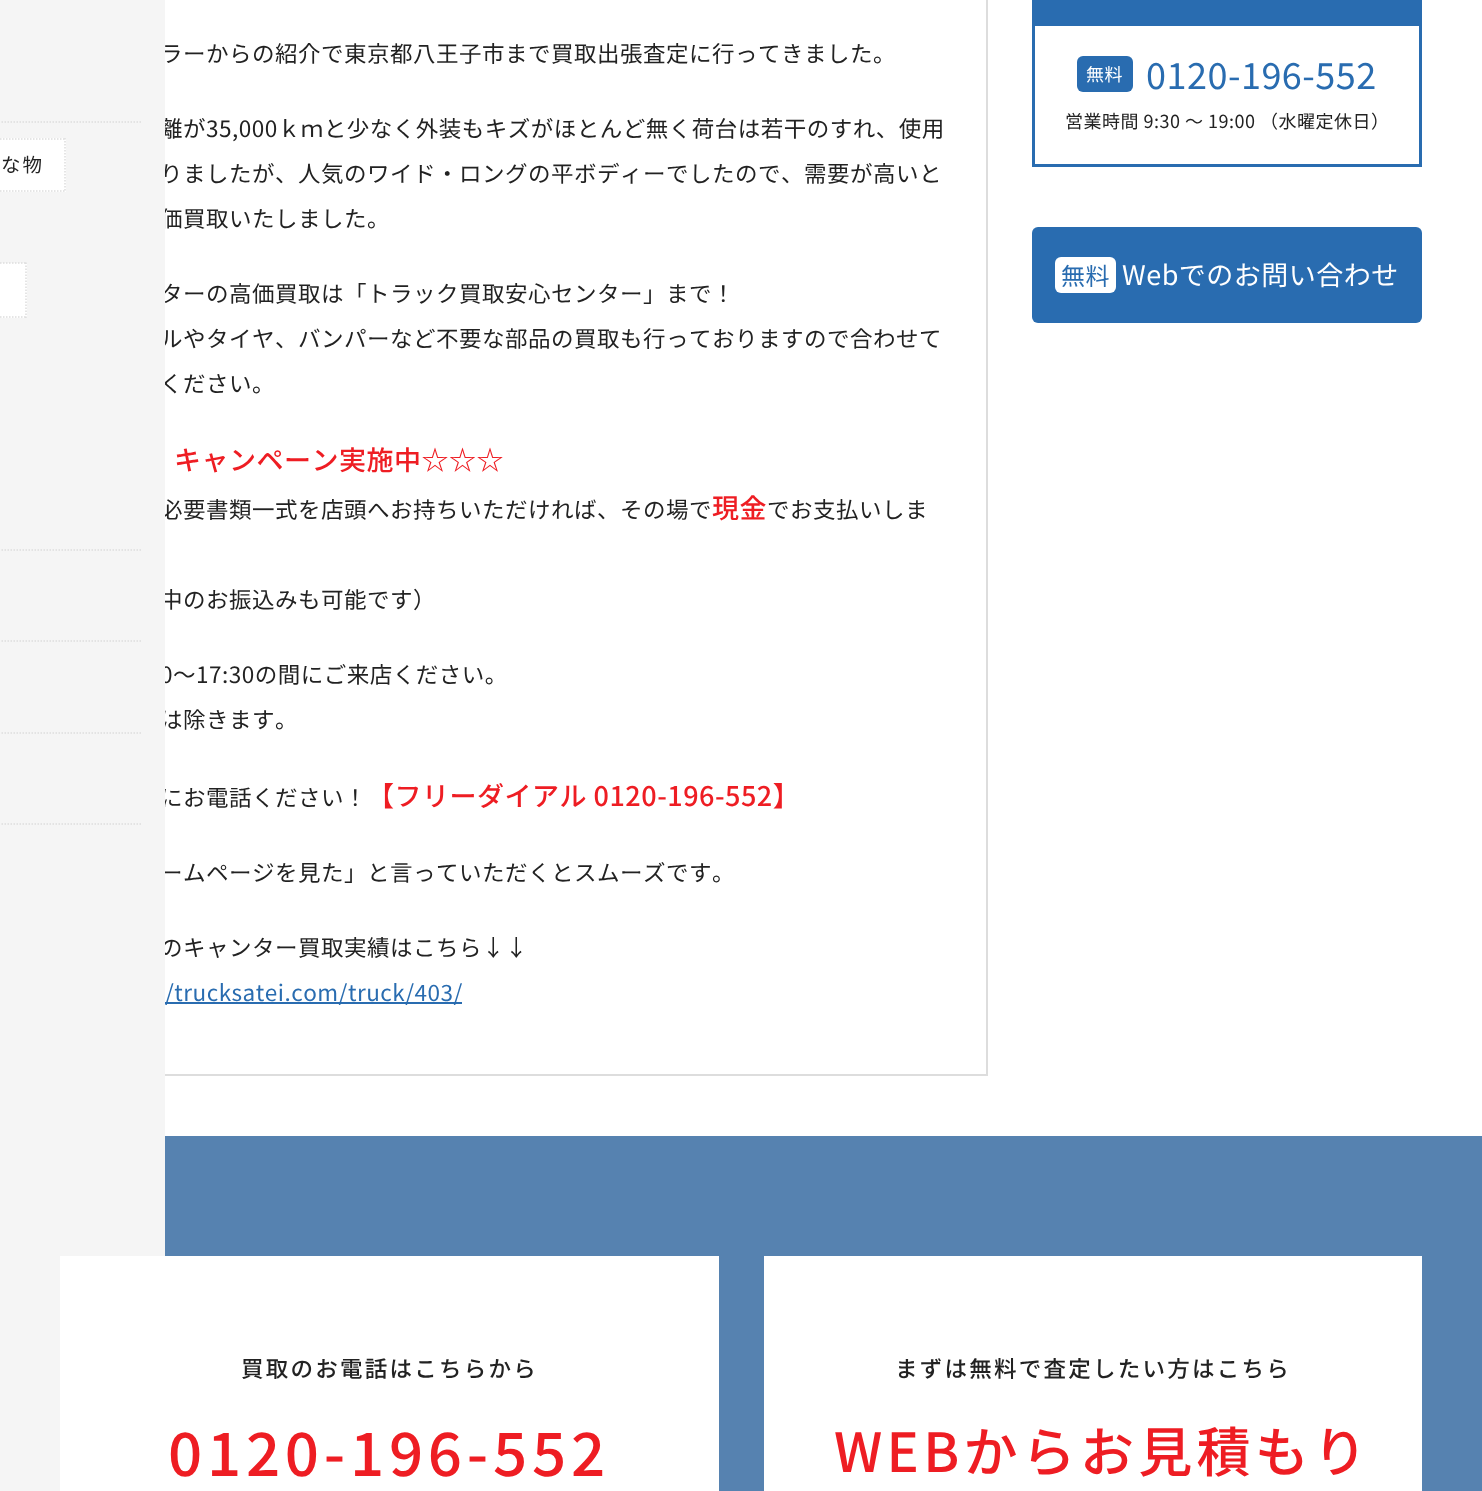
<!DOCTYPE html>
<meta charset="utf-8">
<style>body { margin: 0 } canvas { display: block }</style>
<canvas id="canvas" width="1482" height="1491"></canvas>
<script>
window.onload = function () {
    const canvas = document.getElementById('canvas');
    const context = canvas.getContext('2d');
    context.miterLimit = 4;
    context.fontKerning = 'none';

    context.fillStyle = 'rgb(255, 255, 255)';
    context.fillRect(0, 0, 1482, 1491);
    context.fillStyle = 'rgb(221, 221, 221)';
    context.fillRect(986, 0, 2, 1076);
    context.fillRect(165, 1074, 822, 2);
    context.fillStyle = 'rgb(41, 108, 176)';
    context.fillRect(165, 1002, 297, 2);
    context.fillRect(1032, 0, 390, 23);
    context.strokeStyle = 'rgb(41, 108, 176)';
    context.lineWidth = 3;
    context.strokeRect(1033.5, 24.5, 387, 141);
    context.beginPath();
    context.roundRect(1077, 56, 56, 36, 6);
    context.fill();
    context.beginPath();
    context.roundRect(1032, 227, 390, 96, 6);
    context.fill();
    context.fillStyle = 'rgb(255, 255, 255)';
    context.beginPath();
    context.roundRect(1055, 257, 61, 36, 6);
    context.fill();
    context.fillStyle = 'rgb(86, 130, 176)';
    context.fillRect(165, 1136, 1317, 355);
    context.fillStyle = 'rgb(255, 255, 255)';
    context.fillRect(764, 1256, 658, 235);
    context.letterSpacing = '0.5px';
    context.font = '22.5px Noto Sans JP';
    context.fillStyle = 'rgb(34, 34, 34)';
    context.fillText('ラーからの紹介で東京都八王子市まで買取出張査定に行ってきました。', 160, 62);
    context.fillText('離が35,000ｋｍと少なく外装もキズがほとんど無く荷台は若干のすれ、使用', 160, 137);
    context.fillText('りましたが、人気のワイド・ロングの平ボディーでしたので、需要が高いと', 160, 182);
    context.fillText('価買取いたしました。', 160, 227);
    context.fillText('ターの高価買取は「トラック買取安心センター」まで！', 160, 302);
    context.fillText('ルやタイヤ、バンパーなど不要な部品の買取も行っておりますので合わせて', 160, 347);
    context.fillText('ください。', 160, 392);
    context.font = '500 27px Noto Sans JP';
    context.fillStyle = 'rgb(238, 29, 35)';
    context.fillText('キャンペーン実施中☆☆☆', 174, 470);
    context.font = '22.5px Noto Sans JP';
    context.fillStyle = 'rgb(34, 34, 34)';
    context.fillText('必要書類一式を店頭へお持ちいただければ、その場で', 160, 518);
    context.font = '500 27px Noto Sans JP';
    context.fillStyle = 'rgb(238, 29, 35)';
    context.fillText('現金', 712, 518);
    context.font = '22.5px Noto Sans JP';
    context.fillStyle = 'rgb(34, 34, 34)';
    context.fillText('でお支払いしま', 767, 518);
    context.fillText('中のお振込みも可能です）', 160, 608);
    context.fillText('0～17:30の間にご来店ください。', 160, 683);
    context.fillText('は除きます。', 160, 728);
    context.fillText('にお電話ください！', 160, 806);
    context.font = '500 27px Noto Sans JP';
    context.fillStyle = 'rgb(238, 29, 35)';
    context.fillText('【フリーダイアル 0120-196-552】', 367, 806);
    context.font = '22.5px Noto Sans JP';
    context.fillStyle = 'rgb(34, 34, 34)';
    context.fillText('ームページを見た」と言っていただくとスムーズです', 160, 881);
    context.fillText('。', 712, 881);
    context.fillText('のキャンター買取実績はこちら↓↓', 160, 956);
    context.fillStyle = 'rgb(245, 245, 245)';
    context.fillRect(0, 0, 165, 1491);
    context.fillStyle = 'rgb(255, 255, 255)';
    context.fillRect(0, 263, 27, 55);
    context.beginPath();
    context.moveTo(-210, 263);
    context.lineTo(27, 263);
    context.moveTo(26, 262.5);
    context.lineTo(26, 318);
    context.moveTo(-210, 317);
    context.lineTo(27, 317);
    context.strokeStyle = 'rgb(221, 221, 221)';
    context.lineWidth = 1.5;
    context.setLineDash([1.5, 1.5]);
    context.stroke();
    context.fillRect(0, 138, 66, 54);
    context.letterSpacing = '2px';
    context.font = '19.5px Noto Sans JP';
    context.fillStyle = 'rgb(34, 34, 34)';
    context.fillText('な物', 1, 172);
    context.beginPath();
    context.moveTo(-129, 139);
    context.lineTo(66, 139);
    context.stroke();
    context.beginPath();
    context.moveTo(65, 138);
    context.lineTo(65, 192);
    context.stroke();
    context.beginPath();
    context.moveTo(-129, 191);
    context.lineTo(66, 191);
    context.stroke();
    context.beginPath();
    context.moveTo(-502.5, 824);
    context.lineTo(142.5, 824);
    context.stroke();
    context.beginPath();
    context.moveTo(-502.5, 733);
    context.lineTo(142.5, 733);
    context.stroke();
    context.beginPath();
    context.moveTo(-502.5, 641);
    context.lineTo(142.5, 641);
    context.stroke();
    context.beginPath();
    context.moveTo(-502.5, 550);
    context.lineTo(142.5, 550);
    context.stroke();
    context.beginPath();
    context.moveTo(-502.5, 122);
    context.lineTo(142.5, 122);
    context.stroke();
    context.letterSpacing = '0.5px';
    context.font = '22.5px Noto Sans JP';
    context.fillStyle = 'rgb(41, 108, 176)';
    context.fillText('/trucksatei.com/truck/403/', 165, 1001);
    context.font = '18px Noto Sans JP';
    context.fillStyle = 'rgb(255, 255, 255)';
    context.fillText('無料', 1086, 81);
    context.font = '36px Noto Sans JP';
    context.fillStyle = 'rgb(41, 108, 176)';
    context.fillText('0120-196-552', 1146, 89);
    context.font = '18px Noto Sans JP';
    context.fillStyle = 'rgb(34, 34, 34)';
    context.fillText('営業時間 9:30 〜 19:00 （水曜定休日）', 1065, 128);
    context.font = '24px Noto Sans JP';
    context.fillStyle = 'rgb(41, 108, 176)';
    context.fillText('無料', 1061, 285);
    context.font = '27px Noto Sans JP';
    context.fillStyle = 'rgb(255, 255, 255)';
    context.fillText('Webでのお問い合わせ', 1122, 285);
    context.fillRect(60, 1256, 659, 235);
    context.letterSpacing = '2.25px';
    context.font = '500 22.5px Noto Sans JP';
    context.fillStyle = 'rgb(34, 34, 34)';
    context.fillText('買取のお電話はこちらから', 241, 1377);
    context.letterSpacing = '4.75px';
    context.font = '500 60px Noto Sans JP';
    context.fillStyle = 'rgb(238, 29, 35)';
    context.fillText('0120-196-552', 168, 1476);
    context.letterSpacing = '2.25px';
    context.font = '500 22.5px Noto Sans JP';
    context.fillStyle = 'rgb(34, 34, 34)';
    context.fillText('まずは無料で査定したい方はこちら', 895, 1377);
    context.letterSpacing = '4.25px';
    context.font = '500 54px Noto Sans JP';
    context.fillStyle = 'rgb(238, 29, 35)';
    context.fillText('WEBからお見積もり', 834, 1472);
};
</script>
